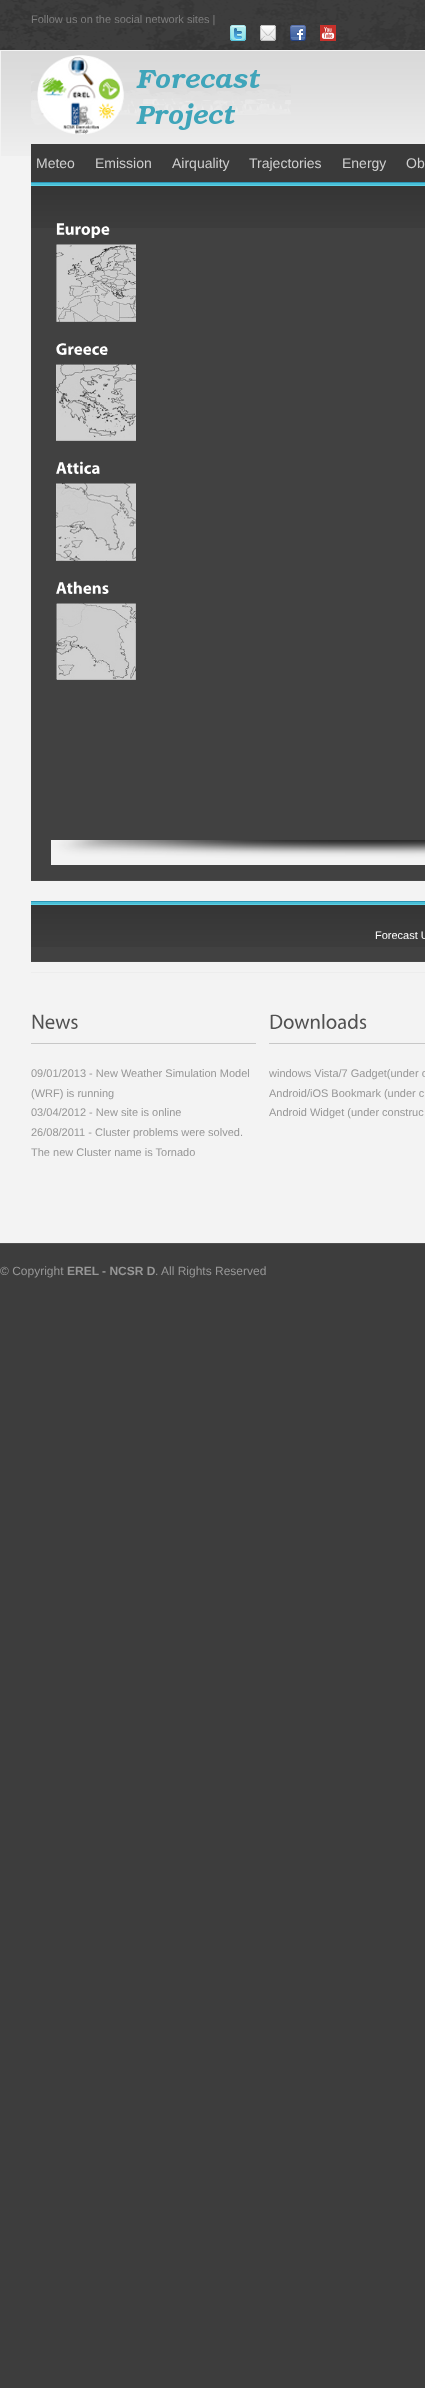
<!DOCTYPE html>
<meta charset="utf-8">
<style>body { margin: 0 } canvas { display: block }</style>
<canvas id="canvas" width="425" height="2388"></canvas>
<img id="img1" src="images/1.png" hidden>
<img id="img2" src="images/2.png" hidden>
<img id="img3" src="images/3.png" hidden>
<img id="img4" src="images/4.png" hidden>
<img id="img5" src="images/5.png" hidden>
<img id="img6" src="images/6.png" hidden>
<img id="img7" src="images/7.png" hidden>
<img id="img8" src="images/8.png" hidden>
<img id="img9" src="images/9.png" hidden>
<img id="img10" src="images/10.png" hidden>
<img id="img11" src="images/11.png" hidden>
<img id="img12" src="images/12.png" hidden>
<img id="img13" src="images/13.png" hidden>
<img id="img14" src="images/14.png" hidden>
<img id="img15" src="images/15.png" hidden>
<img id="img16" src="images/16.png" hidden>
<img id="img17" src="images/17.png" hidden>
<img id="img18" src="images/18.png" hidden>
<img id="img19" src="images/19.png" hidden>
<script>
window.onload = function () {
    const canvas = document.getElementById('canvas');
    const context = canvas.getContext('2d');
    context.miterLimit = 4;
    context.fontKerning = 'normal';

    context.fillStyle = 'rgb(61, 61, 61)';
    context.fillRect(0, 0, 425, 2388);
    context.drawImage(document.getElementById('img1'), 0, 0, 425, 50);
    context.drawImage(document.getElementById('img2'), 230, 25, 16, 16);
    context.drawImage(document.getElementById('img3'), 260, 25, 16, 16);
    context.drawImage(document.getElementById('img4'), 290, 25, 16, 16);
    context.drawImage(document.getElementById('img5'), 320, 25, 16, 16);
    context.fillStyle = 'rgb(243, 243, 243)';
    context.fillRect(1, 156, 424, 1086);
    context.drawImage(document.getElementById('img6'), 1, 51, 424, 105);
    context.strokeStyle = 'rgb(243, 243, 243)';
    context.strokeRect(0.5, 50.5, 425, 1192);
    context.drawImage(document.getElementById('img7'), 31, 55, 260, 80);
    context.fillStyle = 'rgb(58, 58, 58)';
    context.fillRect(31, 144, 394, 38);
    context.fillStyle = 'rgb(65, 65, 65)';
    context.fillRect(31, 228, 394, 652);
    context.drawImage(document.getElementById('img8'), 31, 182, 394, 46);
    context.fillStyle = 'rgb(72, 72, 72)';
    context.fillRect(31, 880, 394, 1);
    context.drawImage(document.getElementById('img9'), 56, 223, 54, 15);
    context.drawImage(document.getElementById('img10'), 56, 244, 80, 78);
    context.drawImage(document.getElementById('img11'), 56, 343, 52, 12);
    context.drawImage(document.getElementById('img12'), 56, 364, 80, 77);
    context.drawImage(document.getElementById('img13'), 56, 461, 44, 13);
    context.drawImage(document.getElementById('img14'), 56, 483, 80, 78);
    context.drawImage(document.getElementById('img15'), 56, 581, 53, 13);
    context.drawImage(document.getElementById('img16'), 56, 603, 80, 77);
    context.drawImage(document.getElementById('img17'), 51, 840, 374, 25);
    context.fillStyle = 'rgb(65, 65, 65)';
    context.fillRect(31, 947, 394, 14);
    context.drawImage(document.getElementById('img8'), 31, 901, 394, 46);
    context.fillStyle = 'rgb(72, 72, 72)';
    context.fillRect(31, 961, 394, 1);
    context.fillStyle = 'rgb(237, 237, 237)';
    context.fillRect(31, 972, 394, 1);
    context.fillStyle = 'rgb(199, 199, 199)';
    context.fillRect(31, 1043, 225, 1);
    context.drawImage(document.getElementById('img18'), 32, 1014, 46, 15);
    context.fillRect(269, 1043, 156, 1);
    context.drawImage(document.getElementById('img19'), 270, 1014, 97, 15);
    context.fillStyle = 'rgb(79, 79, 79)';
    context.fillRect(0, 1243, 425, 1);
    context.font = '11px Liberation Sans';
    context.fillStyle = 'rgb(126, 126, 126)';
    context.fillText('Follow us on the social network sites |', 31, 23);
    context.font = '14px Liberation Sans';
    context.fillStyle = 'rgb(207, 207, 207)';
    context.fillText('Meteo', 36, 168);
    context.fillText('Emission', 95, 168);
    context.fillText('Airquality', 172, 168);
    context.fillText('Trajectories', 249, 168);
    context.fillText('Energy', 342, 168);
    context.fillText('Ob', 406, 168);
    context.font = '11px Liberation Sans';
    context.fillStyle = 'rgb(255, 255, 255)';
    context.fillText('Forecast U', 375, 939);
    context.fillStyle = 'rgb(151, 151, 151)';
    context.fillText('09/01/2013 - New Weather Simulation Model', 31, 1077);
    context.fillText('(WRF) is running', 31, 1097);
    context.fillText('03/04/2012 - New site is online', 31, 1116);
    context.fillText('26/08/2011 - Cluster problems were solved.', 31, 1136);
    context.fillText('The new Cluster name is Tornado', 31, 1156);
    context.fillText('windows Vista/7 Gadget(under c', 269, 1077);
    context.fillText('Android/iOS Bookmark (under c', 269, 1097);
    context.fillText('Android Widget (under construc', 269, 1116);
    context.font = '12px Liberation Sans';
    context.fillText('© Copyright', 0, 1275);
    context.font = 'bold 12px Liberation Sans';
    context.fillText('EREL - NCSR D', 67, 1275);
    context.font = '12px Liberation Sans';
    context.fillText('. All Rights Reserved', 155, 1275);
};
</script>
